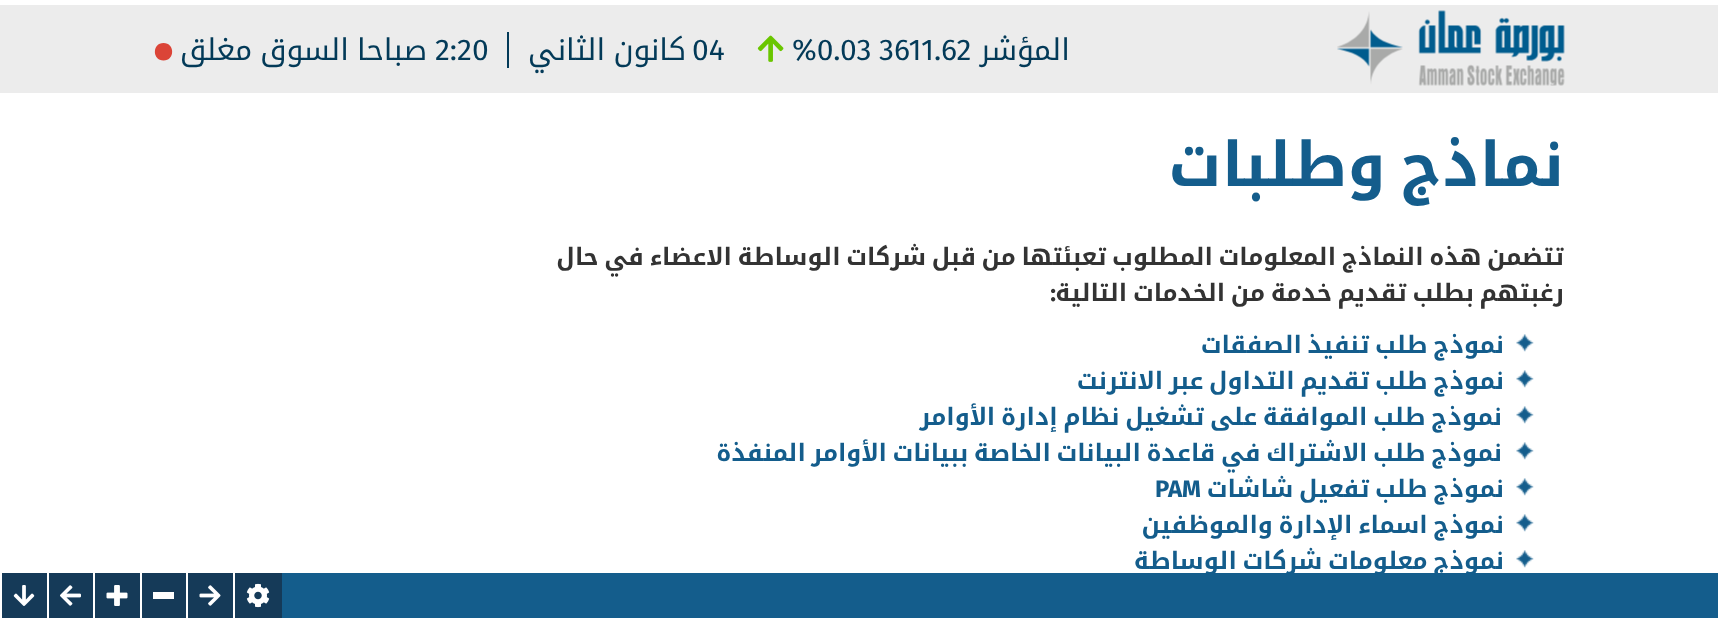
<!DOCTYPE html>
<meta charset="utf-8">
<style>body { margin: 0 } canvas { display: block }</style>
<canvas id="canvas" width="1718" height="618"></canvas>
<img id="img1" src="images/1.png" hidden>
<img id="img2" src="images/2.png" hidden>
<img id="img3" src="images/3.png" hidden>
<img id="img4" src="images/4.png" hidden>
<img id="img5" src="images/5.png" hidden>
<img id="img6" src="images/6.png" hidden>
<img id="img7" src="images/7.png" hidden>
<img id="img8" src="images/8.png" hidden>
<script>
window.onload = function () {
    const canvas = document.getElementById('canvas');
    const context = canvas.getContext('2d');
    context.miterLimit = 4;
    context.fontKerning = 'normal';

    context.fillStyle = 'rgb(255, 255, 255)';
    context.fillRect(0, 0, 1718, 618);
    context.fillStyle = 'rgb(236, 236, 236)';
    context.fillRect(0, 5, 1718, 88);
    context.drawImage(document.getElementById('img1'), 1337, 10, 228, 76);
    context.drawImage(document.getElementById('img2'), 757, 35, 27, 27);
    context.fillStyle = 'rgb(3, 58, 88)';
    context.fillRect(507, 32, 2, 36);
    context.fillStyle = 'rgb(219, 68, 55)';
    context.beginPath();
    context.moveTo(163.5, 43);
    context.bezierCurveTo(152, 43, 152, 60.5, 163.5, 60.5);
    context.bezierCurveTo(175, 60.5, 175, 43, 163.5, 43);
    context.closePath();
    context.fill();
    context.drawImage(document.getElementById('img3'), 1516, 334, 18, 18);
    context.drawImage(document.getElementById('img3'), 1516, 370, 18, 18);
    context.drawImage(document.getElementById('img3'), 1516, 406, 18, 18);
    context.drawImage(document.getElementById('img3'), 1516, 442, 18, 18);
    context.drawImage(document.getElementById('img3'), 1516, 478, 18, 18);
    context.drawImage(document.getElementById('img3'), 1516, 514, 18, 18);
    context.drawImage(document.getElementById('img3'), 1516, 550, 18, 18);
    context.fillStyle = 'rgb(20, 93, 140)';
    context.fillRect(282, 573, 1436, 45);
    context.fillStyle = 'rgb(21, 58, 88)';
    context.fillRect(2, 573, 280, 45);
    context.fillStyle = 'rgb(255, 255, 255)';
    context.fillRect(233, 573, 2, 45);
    context.drawImage(document.getElementById('img4'), 246, 583, 24, 25);
    context.fillRect(186, 573, 2, 45);
    context.drawImage(document.getElementById('img5'), 199, 585, 22, 21);
    context.fillRect(140, 573, 2, 45);
    context.fillRect(153, 592, 21, 7);
    context.fillRect(93, 573, 2, 45);
    context.drawImage(document.getElementById('img6'), 106, 585, 22, 21);
    context.fillRect(47, 573, 2, 45);
    context.drawImage(document.getElementById('img7'), 60, 585, 21, 21);
    context.drawImage(document.getElementById('img8'), 13, 585, 22, 21);
    context.direction = 'rtl';
    context.font = '30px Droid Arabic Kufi';
    context.fillStyle = 'rgb(3, 58, 88)';
    context.fillText('المؤشر', 1070, 60);
    context.direction = 'ltr';
    context.font = '30px Fira Sans';
    context.fillText('3611.62', 879, 60);
    context.fillText('%0.03', 792, 60);
    context.fillText('04', 692, 60);
    context.wordSpacing = '-2px';
    context.direction = 'rtl';
    context.font = '30px Droid Arabic Kufi';
    context.fillText('كانون الثاني', 686, 60);
    context.wordSpacing = '0px';
    context.direction = 'ltr';
    context.font = '30px Fira Sans';
    context.fillText('2:20', 435, 60);
    context.direction = 'rtl';
    context.font = '30px Droid Arabic Kufi';
    context.fillText('صباحا', 427, 60);
    context.wordSpacing = '-2px';
    context.fillText('السوق مغلق', 349, 60);
    context.wordSpacing = '-6px';
    context.font = 'bold 61.5px Droid Arabic Kufi';
    context.fillStyle = 'rgb(20, 93, 140)';
    context.fillText('نماذج وطلبات', 1564, 186);
    context.wordSpacing = '-2.5px';
    context.font = 'bold 24px Droid Arabic Kufi';
    context.fillStyle = 'rgb(51, 51, 51)';
    context.fillText('تتضمن هذه النماذج المعلومات المطلوب تعبئتها من قبل شركات الوساطة الاعضاء في حال', 1564, 265);
    context.fillText('رغبتهم بطلب تقديم خدمة من الخدمات التالية', 1564, 301);
    context.wordSpacing = '0px';
    context.font = 'bold 24px Fira Sans';
    context.fillText(':', 1056, 301);
    context.wordSpacing = '-2.5px';
    context.font = 'bold 24px Droid Arabic Kufi';
    context.fillStyle = 'rgb(20, 93, 140)';
    context.fillText('نموذج طلب تنفيذ الصفقات', 1504, 353);
    context.fillText('نموذج طلب تقديم التداول عبر الانترنت', 1504, 389);
    context.fillText('نموذج طلب الموافقة على تشغيل نظام إدارة الأوامر', 1502, 425);
    context.fillText('نموذج طلب الاشتراك في قاعدة البيانات الخاصة ببيانات الأوامر المنفذة', 1502, 461);
    context.fillText('نموذج طلب تفعيل شاشات', 1504, 497);
    context.wordSpacing = '0px';
    context.direction = 'ltr';
    context.font = 'bold 24px Fira Sans';
    context.fillText('PAM', 1155, 497);
    context.wordSpacing = '-2.5px';
    context.direction = 'rtl';
    context.font = 'bold 24px Droid Arabic Kufi';
    context.fillText('نموذج اسماء الإدارة والموظفين', 1504, 533);
    context.fillText('نموذج معلومات شركات الوساطة', 1504, 569);
};
</script>
